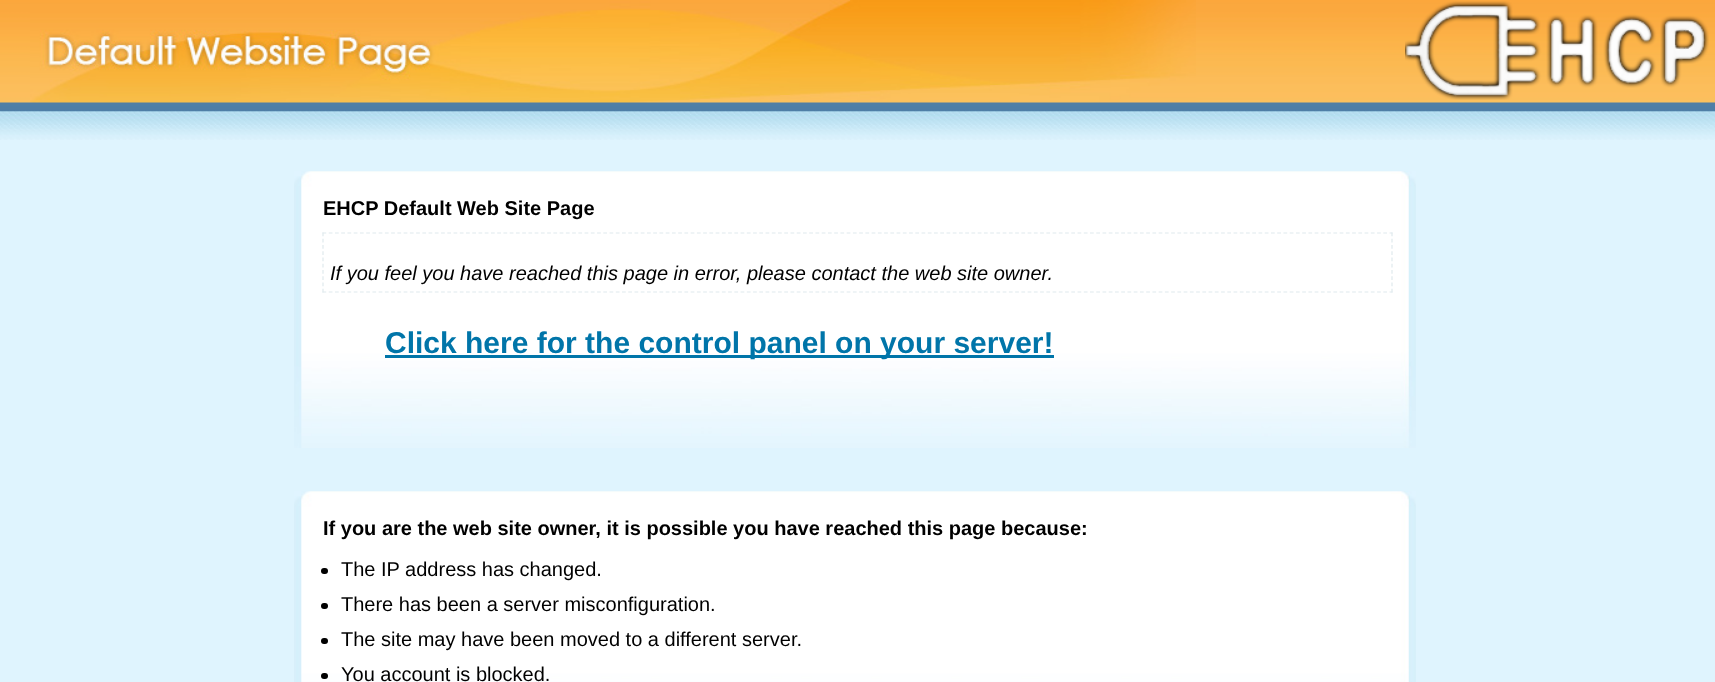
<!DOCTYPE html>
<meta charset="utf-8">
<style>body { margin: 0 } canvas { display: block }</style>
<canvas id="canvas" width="1715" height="682"></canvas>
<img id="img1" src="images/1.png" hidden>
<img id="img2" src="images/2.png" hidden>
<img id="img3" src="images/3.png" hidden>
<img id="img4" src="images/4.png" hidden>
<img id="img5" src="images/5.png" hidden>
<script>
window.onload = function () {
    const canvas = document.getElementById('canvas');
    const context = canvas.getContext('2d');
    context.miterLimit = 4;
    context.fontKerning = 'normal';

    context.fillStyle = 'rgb(223, 244, 254)';
    context.fillRect(0, 0, 1715, 682);
    context.drawImage(document.getElementById('img1'), 0, 0, 1715, 140);
    context.drawImage(document.getElementById('img2'), 30, 0, 1166, 103);
    context.drawImage(document.getElementById('img3'), 1405, 1, 304, 99);
    context.drawImage(document.getElementById('img4'), 294, 171, 1122, 277);
    context.beginPath();
    context.moveTo(322.5, 233);
    context.lineTo(1392.5, 233);
    context.strokeStyle = 'rgb(223, 233, 237)';
    context.lineWidth = 1.2;
    context.setLineDash([3.75, 2.49]);
    context.stroke();
    context.beginPath();
    context.moveTo(1392, 232.5);
    context.lineTo(1392, 292.5);
    context.setLineDash([3.75, 2.5]);
    context.stroke();
    context.beginPath();
    context.moveTo(322.5, 292);
    context.lineTo(1392.5, 292);
    context.setLineDash([3.75, 2.49]);
    context.stroke();
    context.beginPath();
    context.moveTo(323, 232.5);
    context.lineTo(323, 292.5);
    context.setLineDash([3.75, 2.5]);
    context.stroke();
    context.fillStyle = 'rgb(0, 117, 169)';
    context.fillRect(385, 355, 669, 3);
    context.drawImage(document.getElementById('img5'), 294, 491, 1122, 191);
    context.fillStyle = 'rgb(0, 0, 0)';
    context.beginPath();
    context.roundRect(321, 568, 7, 6, 3);
    context.fill();
    context.beginPath();
    context.roundRect(321, 603, 7, 6, 3);
    context.fill();
    context.beginPath();
    context.roundRect(321, 638, 7, 6, 3);
    context.fill();
    context.beginPath();
    context.roundRect(321, 673, 7, 6, 3);
    context.fill();
    context.font = 'bold 20px Liberation Sans';
    context.fillText('EHCP Default Web Site Page', 323, 215);
    context.font = 'italic 20px Liberation Sans';
    context.fillText('If you feel you have reached this page in error, please contact the web site owner.', 330, 280);
    context.font = 'bold 30px Liberation Sans';
    context.fillStyle = 'rgb(0, 117, 169)';
    context.fillText('Click here for the control panel on your server!', 385, 353);
    context.font = 'bold 20px Liberation Sans';
    context.fillStyle = 'rgb(0, 0, 0)';
    context.fillText('If you are the web site owner, it is possible you have reached this page because:', 323, 535);
    context.font = '20px Liberation Sans';
    context.fillText('The IP address has changed.', 341, 576);
    context.fillText('There has been a server misconfiguration.', 341, 611);
    context.fillText('The site may have been moved to a different server.', 341, 646);
    context.fillText('You account is blocked.', 341, 681);
};
</script>
